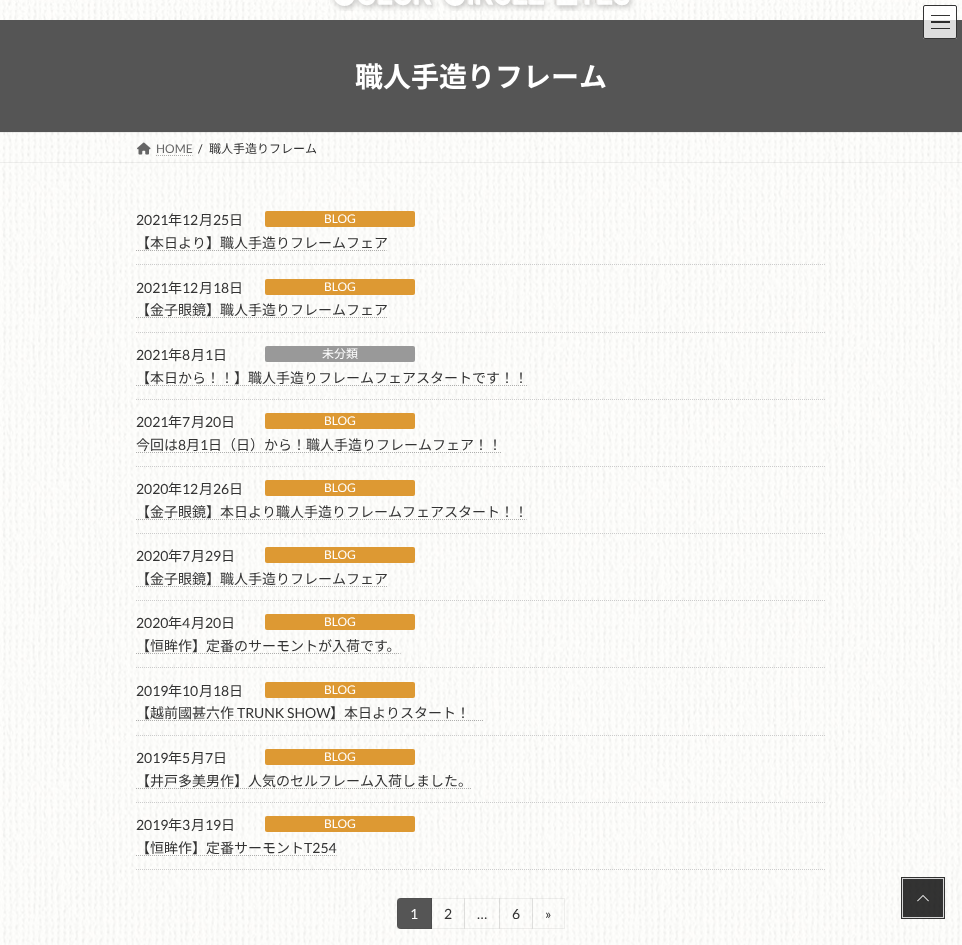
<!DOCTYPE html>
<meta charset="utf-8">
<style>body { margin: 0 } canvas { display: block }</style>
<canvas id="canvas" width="962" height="945"></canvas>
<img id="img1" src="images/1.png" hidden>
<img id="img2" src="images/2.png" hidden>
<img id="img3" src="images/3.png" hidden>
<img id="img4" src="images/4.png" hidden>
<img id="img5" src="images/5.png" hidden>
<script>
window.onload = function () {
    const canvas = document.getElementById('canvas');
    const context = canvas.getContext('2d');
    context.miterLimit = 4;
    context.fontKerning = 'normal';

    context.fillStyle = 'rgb(255, 255, 255)';
    context.fillRect(0, 0, 962, 945);
    context.drawImage(document.getElementById('img1'), 0, 0, 962, 945);
    context.drawImage(document.getElementById('img2'), 2, 0, 958, 20);
    context.drawImage(document.getElementById('img3'), 330, 0, 305, 11);
    context.fillStyle = 'rgb(85, 85, 85)';
    context.fillRect(0, 20, 962, 112);
    context.fillStyle = 'rgba(255, 255, 255, 0.8)';
    context.beginPath();
    context.roundRect(923, 5, 34, 34, 2);
    context.fill();
    context.fillStyle = 'rgb(51, 51, 51)';
    context.fillRect(931, 15, 19, 1);
    context.fillStyle = 'rgb(44, 44, 44)';
    context.fillRect(931, 21, 19, 2);
    context.fillRect(931, 28, 19, 1);
    context.beginPath();
    context.roundRect(923.5, 5.5, 33, 33, 1.5);
    context.strokeStyle = 'rgb(51, 51, 51)';
    context.stroke();
    context.fillStyle = 'rgba(0, 0, 0, 0.06)';
    context.fillRect(0, 132, 962, 1);
    context.fillRect(0, 162, 962, 1);
    context.drawImage(document.getElementById('img4'), 137, 142, 14, 13);
    context.beginPath();
    context.moveTo(156, 155.5);
    context.lineTo(192.5, 155.5);
    context.strokeStyle = 'rgba(0, 0, 0, 0.3)';
    context.setLineDash([1, 1]);
    context.stroke();
    context.beginPath();
    context.moveTo(136, 264.5);
    context.lineTo(826, 264.5);
    context.strokeStyle = 'rgb(204, 204, 204)';
    context.stroke();
    context.fillStyle = 'rgb(221, 153, 51)';
    context.beginPath();
    context.roundRect(265, 211, 150, 16, 2);
    context.fill();
    context.beginPath();
    context.moveTo(136, 250.5);
    context.lineTo(386.5, 250.5);
    context.strokeStyle = 'rgba(0, 0, 0, 0.3)';
    context.stroke();
    context.beginPath();
    context.moveTo(136, 332.5);
    context.lineTo(826, 332.5);
    context.strokeStyle = 'rgb(204, 204, 204)';
    context.stroke();
    context.beginPath();
    context.roundRect(265, 279, 150, 16, 2);
    context.fill();
    context.beginPath();
    context.moveTo(136, 317.5);
    context.lineTo(387, 317.5);
    context.strokeStyle = 'rgba(0, 0, 0, 0.3)';
    context.stroke();
    context.beginPath();
    context.moveTo(136, 399.5);
    context.lineTo(826, 399.5);
    context.strokeStyle = 'rgb(204, 204, 204)';
    context.stroke();
    context.fillStyle = 'rgb(153, 153, 153)';
    context.beginPath();
    context.roundRect(265, 346, 150, 16, 2);
    context.fill();
    context.beginPath();
    context.moveTo(136, 385.5);
    context.lineTo(527, 385.5);
    context.strokeStyle = 'rgba(0, 0, 0, 0.3)';
    context.stroke();
    context.beginPath();
    context.moveTo(136, 466.5);
    context.lineTo(826, 466.5);
    context.strokeStyle = 'rgb(204, 204, 204)';
    context.stroke();
    context.fillStyle = 'rgb(221, 153, 51)';
    context.beginPath();
    context.roundRect(265, 413, 150, 16, 2);
    context.fill();
    context.beginPath();
    context.moveTo(136, 452.5);
    context.lineTo(501, 452.5);
    context.strokeStyle = 'rgba(0, 0, 0, 0.3)';
    context.stroke();
    context.beginPath();
    context.moveTo(136, 533.5);
    context.lineTo(826, 533.5);
    context.strokeStyle = 'rgb(204, 204, 204)';
    context.stroke();
    context.beginPath();
    context.roundRect(265, 480, 150, 16, 2);
    context.fill();
    context.beginPath();
    context.moveTo(136, 519.5);
    context.lineTo(526.5, 519.5);
    context.strokeStyle = 'rgba(0, 0, 0, 0.3)';
    context.stroke();
    context.beginPath();
    context.moveTo(136, 600.5);
    context.lineTo(826, 600.5);
    context.strokeStyle = 'rgb(204, 204, 204)';
    context.stroke();
    context.beginPath();
    context.roundRect(265, 547, 150, 16, 2);
    context.fill();
    context.beginPath();
    context.moveTo(136, 586.5);
    context.lineTo(387, 586.5);
    context.strokeStyle = 'rgba(0, 0, 0, 0.3)';
    context.stroke();
    context.beginPath();
    context.moveTo(136, 667.5);
    context.lineTo(826, 667.5);
    context.strokeStyle = 'rgb(204, 204, 204)';
    context.stroke();
    context.beginPath();
    context.roundRect(265, 614, 150, 16, 2);
    context.fill();
    context.beginPath();
    context.moveTo(136, 653.5);
    context.lineTo(400.5, 653.5);
    context.strokeStyle = 'rgba(0, 0, 0, 0.3)';
    context.stroke();
    context.beginPath();
    context.moveTo(136, 735.5);
    context.lineTo(826, 735.5);
    context.strokeStyle = 'rgb(204, 204, 204)';
    context.stroke();
    context.beginPath();
    context.roundRect(265, 682, 150, 16, 2);
    context.fill();
    context.beginPath();
    context.moveTo(136, 720.5);
    context.lineTo(484, 720.5);
    context.strokeStyle = 'rgba(0, 0, 0, 0.3)';
    context.stroke();
    context.beginPath();
    context.moveTo(136, 802.5);
    context.lineTo(826, 802.5);
    context.strokeStyle = 'rgb(204, 204, 204)';
    context.stroke();
    context.beginPath();
    context.roundRect(265, 749, 150, 16, 2);
    context.fill();
    context.beginPath();
    context.moveTo(136, 788.5);
    context.lineTo(471.5, 788.5);
    context.strokeStyle = 'rgba(0, 0, 0, 0.3)';
    context.stroke();
    context.beginPath();
    context.moveTo(136, 869.5);
    context.lineTo(826, 869.5);
    context.strokeStyle = 'rgb(204, 204, 204)';
    context.stroke();
    context.beginPath();
    context.roundRect(265, 816, 150, 16, 2);
    context.fill();
    context.beginPath();
    context.moveTo(136, 855.5);
    context.lineTo(336.5, 855.5);
    context.strokeStyle = 'rgba(0, 0, 0, 0.3)';
    context.stroke();
    context.fillStyle = 'rgb(85, 85, 85)';
    context.beginPath();
    context.roundRect(397, 898, 35, 31, [4, 0, 0, 4]);
    context.fill();
    context.strokeStyle = 'rgba(0, 0, 0, 0.06)';
    context.setLineDash([]);
    context.strokeRect(397.5, 898.5, 34, 30);
    context.strokeRect(431.5, 898.5, 33, 30);
    context.strokeRect(464.5, 898.5, 35, 30);
    context.strokeRect(499.5, 898.5, 33, 30);
    context.strokeRect(532.5, 898.5, 32, 30);
    context.strokeStyle = 'rgba(0, 0, 0, 0.8)';
    context.lineWidth = 2;
    context.strokeRect(902, 878, 42, 40);
    context.strokeStyle = 'rgba(255, 255, 255, 0.8)';
    context.lineWidth = 1;
    context.strokeRect(902.5, 878.5, 41, 39);
    context.fillStyle = 'rgba(0, 0, 0, 0.8)';
    context.fillRect(903, 879, 40, 38);
    context.drawImage(document.getElementById('img5'), 917, 895, 12, 7);
    context.font = 'bold 28px Noto Sans JP';
    context.fillStyle = 'rgb(255, 255, 255)';
    context.fillText('職人手造りフレーム', 355, 87);
    context.font = '12px Lato';
    context.fillStyle = 'rgb(102, 102, 102)';
    context.fillText('HOME', 156, 153);
    context.fillStyle = 'rgb(51, 51, 51)';
    context.fillText('/', 198, 153);
    context.font = '12px Noto Sans JP';
    context.fillText('職人手造りフレーム', 209, 153);
    context.font = '14px Lato';
    context.fillText('2021', 136, 225);
    context.font = '14px Noto Sans JP';
    context.fillText('年', 168, 225);
    context.font = '14px Lato';
    context.fillText('12', 182, 225);
    context.font = '14px Noto Sans JP';
    context.fillText('月', 199, 225);
    context.font = '14px Lato';
    context.fillText('25', 213, 225);
    context.font = '14px Noto Sans JP';
    context.fillText('日', 229, 225);
    context.font = '12px Lato';
    context.fillStyle = 'rgb(255, 255, 255)';
    context.fillText('BLOG', 324, 223);
    context.font = '14px Noto Sans JP';
    context.fillStyle = 'rgb(51, 51, 51)';
    context.fillText('【本日より】職人手造りフレームフェア', 136, 248);
    context.font = '14px Lato';
    context.fillText('2021', 136, 293);
    context.font = '14px Noto Sans JP';
    context.fillText('年', 168, 293);
    context.font = '14px Lato';
    context.fillText('12', 182, 293);
    context.font = '14px Noto Sans JP';
    context.fillText('月', 199, 293);
    context.font = '14px Lato';
    context.fillText('18', 213, 293);
    context.font = '14px Noto Sans JP';
    context.fillText('日', 229, 293);
    context.font = '12px Lato';
    context.fillStyle = 'rgb(255, 255, 255)';
    context.fillText('BLOG', 324, 291);
    context.font = '14px Noto Sans JP';
    context.fillStyle = 'rgb(51, 51, 51)';
    context.fillText('【金子眼鏡】職人手造りフレームフェア', 136, 315);
    context.font = '14px Lato';
    context.fillText('2021', 136, 360);
    context.font = '14px Noto Sans JP';
    context.fillText('年', 168, 360);
    context.font = '14px Lato';
    context.fillText('8', 182, 360);
    context.font = '14px Noto Sans JP';
    context.fillText('月', 191, 360);
    context.font = '14px Lato';
    context.fillText('1', 205, 360);
    context.font = '14px Noto Sans JP';
    context.fillText('日', 213, 360);
    context.font = '12px Noto Sans JP';
    context.fillStyle = 'rgb(255, 255, 255)';
    context.fillText('未分類', 322, 358);
    context.font = '14px Noto Sans JP';
    context.fillStyle = 'rgb(51, 51, 51)';
    context.fillText('【本日から！！】職人手造りフレームフェアスタートです！！', 136, 383);
    context.font = '14px Lato';
    context.fillText('2021', 136, 427);
    context.font = '14px Noto Sans JP';
    context.fillText('年', 168, 427);
    context.font = '14px Lato';
    context.fillText('7', 182, 427);
    context.font = '14px Noto Sans JP';
    context.fillText('月', 191, 427);
    context.font = '14px Lato';
    context.fillText('20', 205, 427);
    context.font = '14px Noto Sans JP';
    context.fillText('日', 221, 427);
    context.font = '12px Lato';
    context.fillStyle = 'rgb(255, 255, 255)';
    context.fillText('BLOG', 324, 425);
    context.font = '14px Noto Sans JP';
    context.fillStyle = 'rgb(51, 51, 51)';
    context.fillText('今回は', 136, 450);
    context.font = '14px Lato';
    context.fillText('8', 178, 450);
    context.font = '14px Noto Sans JP';
    context.fillText('月', 186, 450);
    context.font = '14px Lato';
    context.fillText('1', 200, 450);
    context.font = '14px Noto Sans JP';
    context.fillText('日（日）から！職人手造りフレームフェア！！', 208, 450);
    context.font = '14px Lato';
    context.fillText('2020', 136, 494);
    context.font = '14px Noto Sans JP';
    context.fillText('年', 168, 494);
    context.font = '14px Lato';
    context.fillText('12', 182, 494);
    context.font = '14px Noto Sans JP';
    context.fillText('月', 199, 494);
    context.font = '14px Lato';
    context.fillText('26', 213, 494);
    context.font = '14px Noto Sans JP';
    context.fillText('日', 229, 494);
    context.font = '12px Lato';
    context.fillStyle = 'rgb(255, 255, 255)';
    context.fillText('BLOG', 324, 492);
    context.font = '14px Noto Sans JP';
    context.fillStyle = 'rgb(51, 51, 51)';
    context.fillText('【金子眼鏡】本日より職人手造りフレームフェアスタート！！', 136, 517);
    context.font = '14px Lato';
    context.fillText('2020', 136, 561);
    context.font = '14px Noto Sans JP';
    context.fillText('年', 168, 561);
    context.font = '14px Lato';
    context.fillText('7', 182, 561);
    context.font = '14px Noto Sans JP';
    context.fillText('月', 191, 561);
    context.font = '14px Lato';
    context.fillText('29', 205, 561);
    context.font = '14px Noto Sans JP';
    context.fillText('日', 221, 561);
    context.font = '12px Lato';
    context.fillStyle = 'rgb(255, 255, 255)';
    context.fillText('BLOG', 324, 559);
    context.font = '14px Noto Sans JP';
    context.fillStyle = 'rgb(51, 51, 51)';
    context.fillText('【金子眼鏡】職人手造りフレームフェア', 136, 584);
    context.font = '14px Lato';
    context.fillText('2020', 136, 628);
    context.font = '14px Noto Sans JP';
    context.fillText('年', 168, 628);
    context.font = '14px Lato';
    context.fillText('4', 182, 628);
    context.font = '14px Noto Sans JP';
    context.fillText('月', 191, 628);
    context.font = '14px Lato';
    context.fillText('20', 205, 628);
    context.font = '14px Noto Sans JP';
    context.fillText('日', 221, 628);
    context.font = '12px Lato';
    context.fillStyle = 'rgb(255, 255, 255)';
    context.fillText('BLOG', 324, 626);
    context.font = '14px Noto Sans JP';
    context.fillStyle = 'rgb(51, 51, 51)';
    context.fillText('【恒眸作】定番のサーモントが入荷です。', 136, 651);
    context.font = '14px Lato';
    context.fillText('2019', 136, 696);
    context.font = '14px Noto Sans JP';
    context.fillText('年', 168, 696);
    context.font = '14px Lato';
    context.fillText('10', 182, 696);
    context.font = '14px Noto Sans JP';
    context.fillText('月', 199, 696);
    context.font = '14px Lato';
    context.fillText('18', 213, 696);
    context.font = '14px Noto Sans JP';
    context.fillText('日', 229, 696);
    context.font = '12px Lato';
    context.fillStyle = 'rgb(255, 255, 255)';
    context.fillText('BLOG', 324, 694);
    context.font = '14px Noto Sans JP';
    context.fillStyle = 'rgb(51, 51, 51)';
    context.fillText('【越前國甚六作', 136, 718);
    context.font = '14px Lato';
    context.fillText('TRUNK SHOW', 237, 718);
    context.font = '14px Noto Sans JP';
    context.fillText('】本日よりスタート！', 330, 718);
    context.font = '14px Lato';
    context.fillText('2019', 136, 763);
    context.font = '14px Noto Sans JP';
    context.fillText('年', 168, 763);
    context.font = '14px Lato';
    context.fillText('5', 182, 763);
    context.font = '14px Noto Sans JP';
    context.fillText('月', 191, 763);
    context.font = '14px Lato';
    context.fillText('7', 205, 763);
    context.font = '14px Noto Sans JP';
    context.fillText('日', 213, 763);
    context.font = '12px Lato';
    context.fillStyle = 'rgb(255, 255, 255)';
    context.fillText('BLOG', 324, 761);
    context.font = '14px Noto Sans JP';
    context.fillStyle = 'rgb(51, 51, 51)';
    context.fillText('【井戸多美男作】人気のセルフレーム入荷しました。', 136, 786);
    context.font = '14px Lato';
    context.fillText('2019', 136, 830);
    context.font = '14px Noto Sans JP';
    context.fillText('年', 168, 830);
    context.font = '14px Lato';
    context.fillText('3', 182, 830);
    context.font = '14px Noto Sans JP';
    context.fillText('月', 191, 830);
    context.font = '14px Lato';
    context.fillText('19', 205, 830);
    context.font = '14px Noto Sans JP';
    context.fillText('日', 221, 830);
    context.font = '12px Lato';
    context.fillStyle = 'rgb(255, 255, 255)';
    context.fillText('BLOG', 324, 828);
    context.font = '14px Noto Sans JP';
    context.fillStyle = 'rgb(51, 51, 51)';
    context.fillText('【恒眸作】定番サーモント', 136, 853);
    context.font = '14px Lato';
    context.fillText('T254', 304, 853);
    context.fillStyle = 'rgb(255, 255, 255)';
    context.fillText('1', 410, 919);
    context.fillStyle = 'rgb(51, 51, 51)';
    context.fillText('2', 444, 919);
    context.fillText('…', 477, 919);
    context.fillText('6', 512, 919);
    context.fillText('»', 545, 919);
};
</script>
